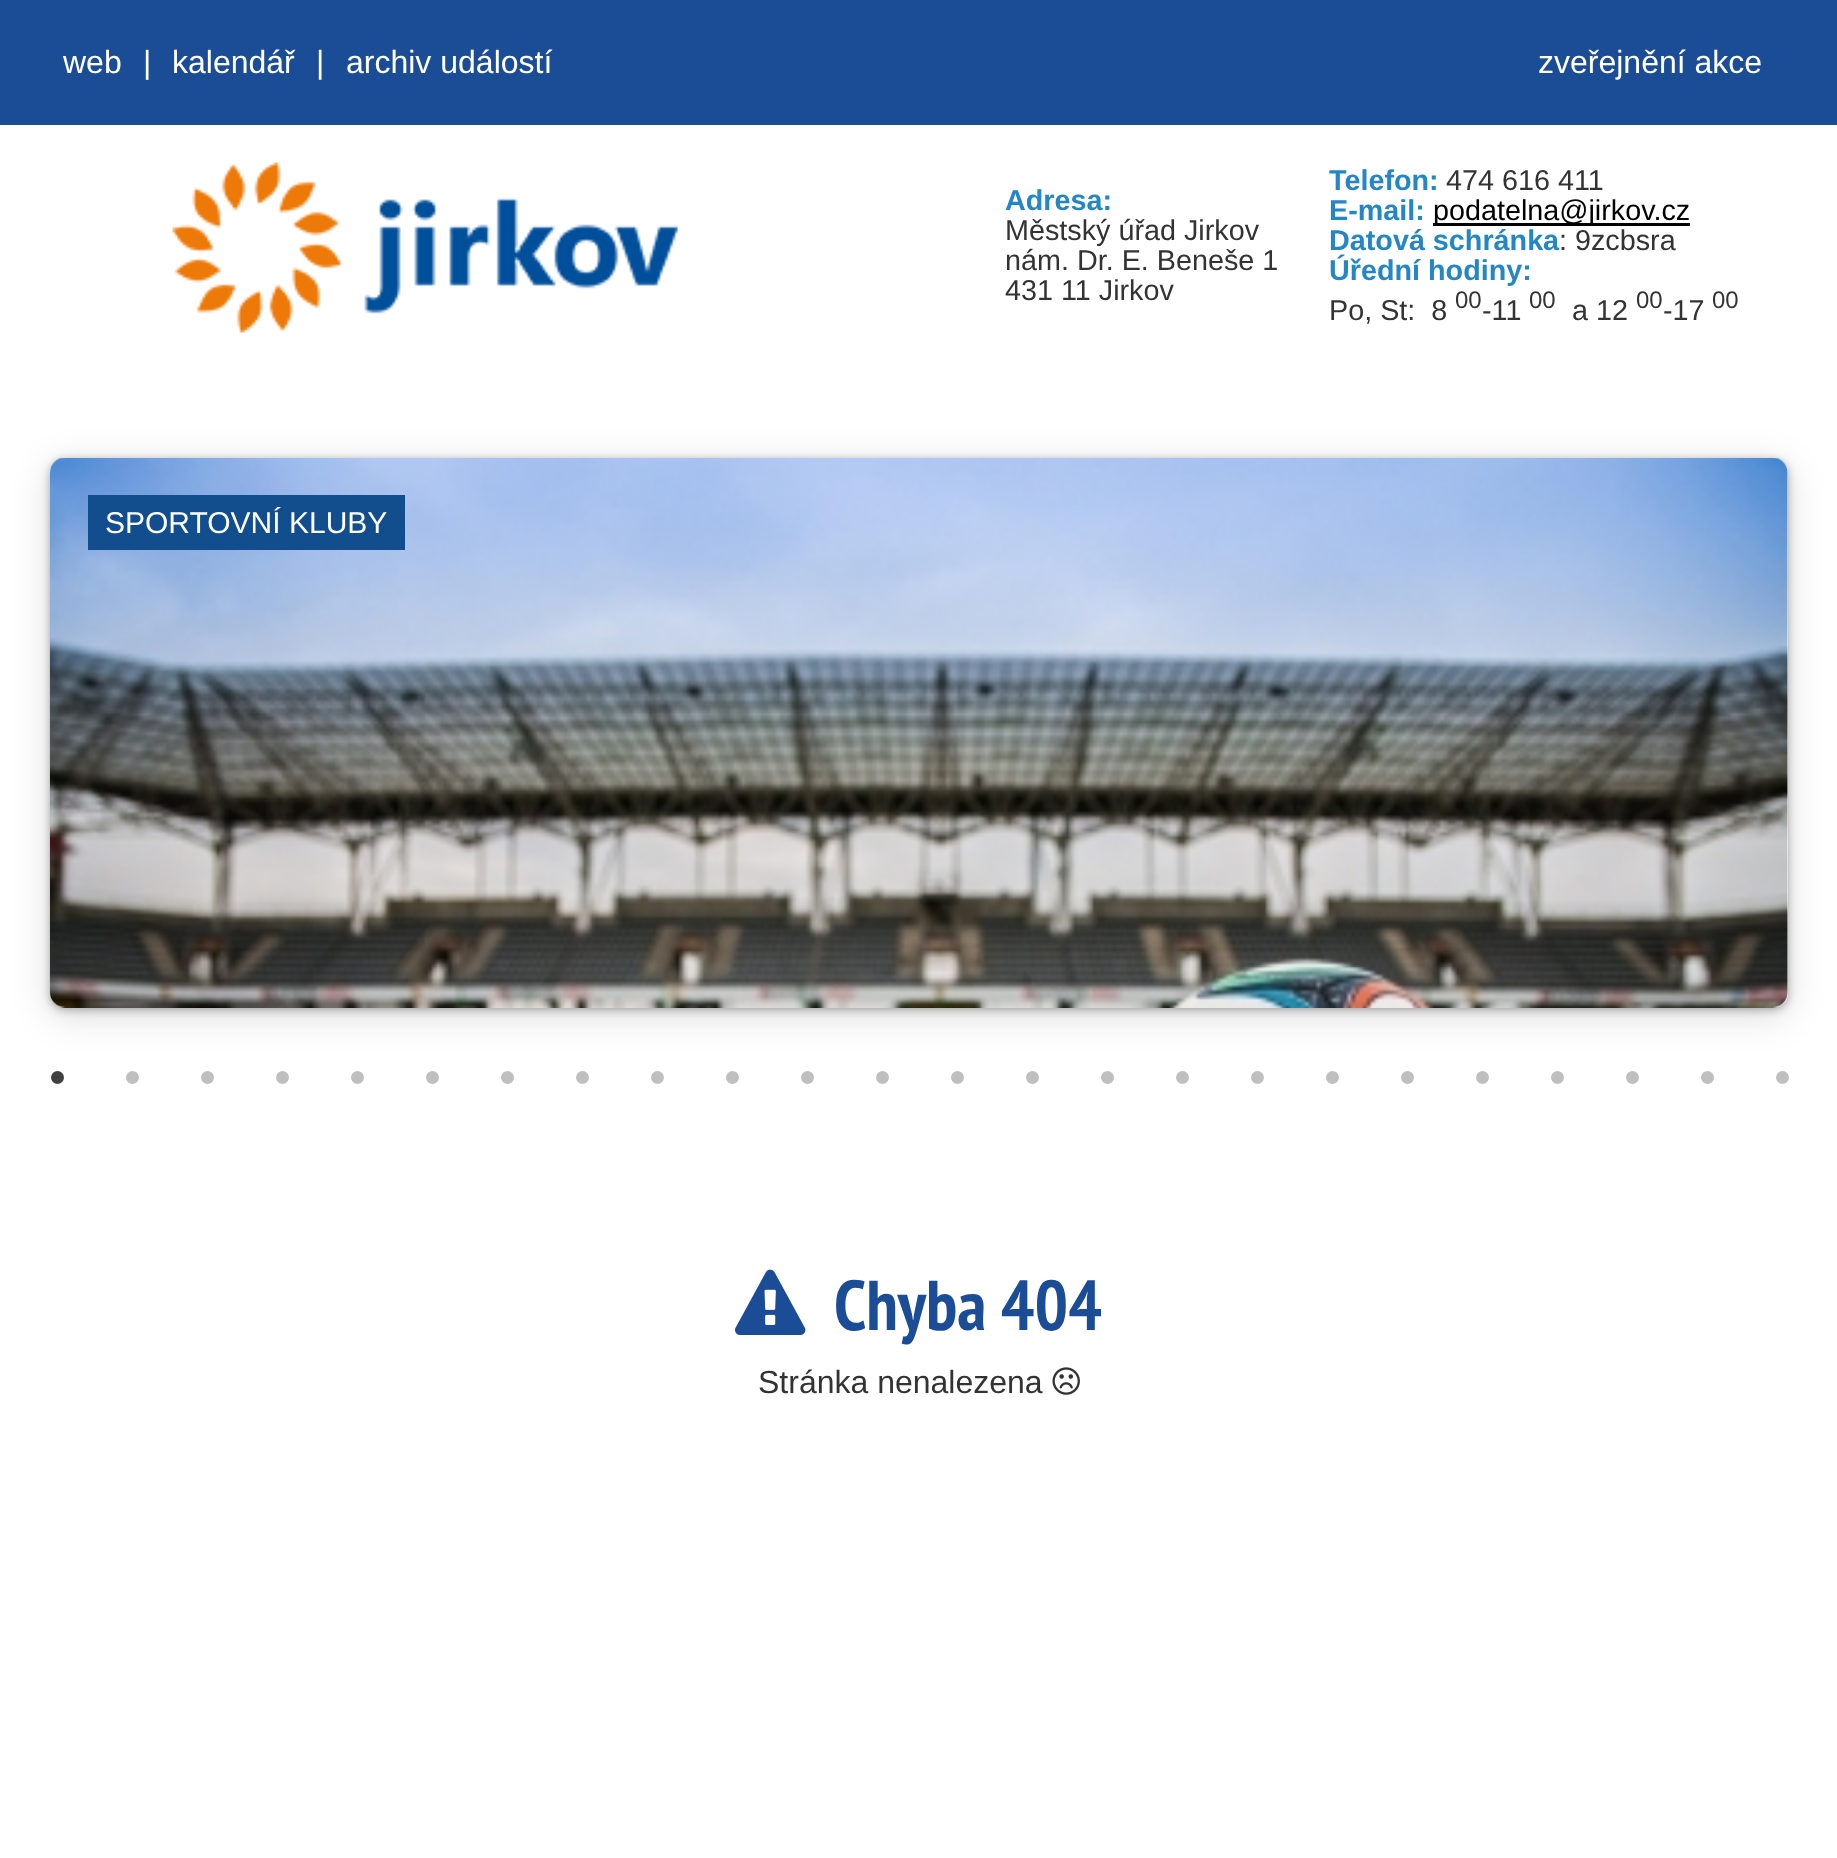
<!DOCTYPE html>
<meta charset="utf-8">
<style>body { margin: 0 } canvas { display: block }</style>
<canvas id="canvas" width="1837" height="1858"></canvas>
<img id="img1" src="images/1.png" hidden>
<img id="img2" src="images/2.png" hidden>
<img id="img3" src="images/3.png" hidden>
<img id="img4" src="images/4.png" hidden>
<img id="img5" src="images/5.png" hidden>
<img id="img6" src="images/6.png" hidden>
<script>
window.onload = function () {
    const canvas = document.getElementById('canvas');
    const context = canvas.getContext('2d');
    context.miterLimit = 4;
    context.fontKerning = 'normal';

    context.fillStyle = 'rgb(255, 255, 255)';
    context.fillRect(0, 0, 1837, 1858);
    context.fillStyle = 'rgb(27, 77, 150)';
    context.fillRect(0, 0, 1837, 125);
    context.drawImage(document.getElementById('img1'), 172, 162, 506, 171);
    context.fillStyle = 'rgb(0, 0, 0)';
    context.fillRect(1433, 223, 257, 3);
    context.fillStyle = 'rgba(0, 0, 0, 0.12)';
    context.filter = 'blur(17.5px)';
    context.beginPath();
    context.roundRect(48, 463, 1742, 555, 18);
    context.fill();
    context.filter = 'none';
    context.fillStyle = 'rgba(0, 0, 0, 0.3)';
    context.filter = 'blur(4px)';
    context.beginPath();
    context.roundRect(50, 460, 1738, 550, 15);
    context.fill();
    context.filter = 'none';
    context.fillStyle = 'rgb(255, 255, 255)';
    context.beginPath();
    context.roundRect(50, 458, 1738, 550, 15);
    context.fill();
    context.drawImage(document.getElementById('img2'), 50, 458, 1738, 550);
    context.fillStyle = 'rgb(18, 77, 142)';
    context.fillRect(88, 495, 317, 55);
    context.drawImage(document.getElementById('img3'), 51, 1071, 13, 13);
    context.drawImage(document.getElementById('img4'), 126, 1071, 13, 13);
    context.drawImage(document.getElementById('img4'), 201, 1071, 13, 13);
    context.drawImage(document.getElementById('img4'), 276, 1071, 13, 13);
    context.drawImage(document.getElementById('img4'), 351, 1071, 13, 13);
    context.drawImage(document.getElementById('img4'), 426, 1071, 13, 13);
    context.drawImage(document.getElementById('img4'), 501, 1071, 13, 13);
    context.drawImage(document.getElementById('img4'), 576, 1071, 13, 13);
    context.drawImage(document.getElementById('img4'), 651, 1071, 13, 13);
    context.drawImage(document.getElementById('img4'), 726, 1071, 13, 13);
    context.drawImage(document.getElementById('img4'), 801, 1071, 13, 13);
    context.drawImage(document.getElementById('img4'), 876, 1071, 13, 13);
    context.drawImage(document.getElementById('img4'), 951, 1071, 13, 13);
    context.drawImage(document.getElementById('img4'), 1026, 1071, 13, 13);
    context.drawImage(document.getElementById('img4'), 1101, 1071, 13, 13);
    context.drawImage(document.getElementById('img4'), 1176, 1071, 13, 13);
    context.drawImage(document.getElementById('img4'), 1251, 1071, 13, 13);
    context.drawImage(document.getElementById('img4'), 1326, 1071, 13, 13);
    context.drawImage(document.getElementById('img4'), 1401, 1071, 13, 13);
    context.drawImage(document.getElementById('img4'), 1476, 1071, 13, 13);
    context.drawImage(document.getElementById('img4'), 1551, 1071, 13, 13);
    context.drawImage(document.getElementById('img4'), 1626, 1071, 13, 13);
    context.drawImage(document.getElementById('img4'), 1701, 1071, 13, 13);
    context.drawImage(document.getElementById('img4'), 1776, 1071, 13, 13);
    context.drawImage(document.getElementById('img5'), 735, 1269, 71, 66);
    context.drawImage(document.getElementById('img6'), 1052, 1367, 28, 28);
    context.font = '32px Liberation Sans';
    context.fillStyle = 'rgb(255, 255, 255)';
    context.fillText('web', 63, 73);
    context.fillText('|', 143, 73);
    context.fillText('kalendář', 172, 73);
    context.fillText('|', 316, 73);
    context.fillText('archiv událostí', 346, 73);
    context.fillText('zveřejnění akce', 1538, 73);
    context.font = 'bold 28.75px Liberation Sans';
    context.fillStyle = 'rgb(36, 134, 196)';
    context.fillText('Adresa:', 1005, 210);
    context.font = '28.75px Liberation Sans';
    context.fillStyle = 'rgb(51, 51, 51)';
    context.fillText('Městský úřad Jirkov', 1005, 240);
    context.fillText('nám. Dr. E. Beneše 1', 1005, 270);
    context.fillText('431 11 Jirkov', 1005, 300);
    context.font = 'bold 28.75px Liberation Sans';
    context.fillStyle = 'rgb(36, 134, 196)';
    context.fillText('Telefon:', 1329, 190);
    context.font = '28.75px Liberation Sans';
    context.fillStyle = 'rgb(51, 51, 51)';
    context.fillText('474 616 411', 1446, 190);
    context.font = 'bold 28.75px Liberation Sans';
    context.fillStyle = 'rgb(36, 134, 196)';
    context.fillText('E-mail:', 1329, 220);
    context.font = '28.75px Liberation Sans';
    context.fillStyle = 'rgb(0, 0, 0)';
    context.fillText('podatelna@jirkov.cz', 1433, 220);
    context.font = 'bold 28.75px Liberation Sans';
    context.fillStyle = 'rgb(36, 134, 196)';
    context.fillText('Datová schránka', 1329, 250);
    context.font = '28.75px Liberation Sans';
    context.fillStyle = 'rgb(51, 51, 51)';
    context.fillText(': 9zcbsra', 1559, 250);
    context.font = 'bold 28.75px Liberation Sans';
    context.fillStyle = 'rgb(36, 134, 196)';
    context.fillText('Úřední hodiny:', 1329, 280);
    context.font = '28.75px Liberation Sans';
    context.fillStyle = 'rgb(51, 51, 51)';
    context.fillText('Po, St:  8', 1329, 320);
    context.font = '24px Liberation Sans';
    context.fillText('00', 1455, 308);
    context.font = '28.75px Liberation Sans';
    context.fillText('-11', 1482, 320);
    context.font = '24px Liberation Sans';
    context.fillText('00', 1529, 308);
    context.font = '28.75px Liberation Sans';
    context.fillText('a 12', 1572, 320);
    context.font = '24px Liberation Sans';
    context.fillText('00', 1636, 308);
    context.font = '28.75px Liberation Sans';
    context.fillText('-17', 1663, 320);
    context.font = '24px Liberation Sans';
    context.fillText('00', 1712, 308);
    context.font = '30px Liberation Sans';
    context.fillStyle = 'rgb(255, 255, 255)';
    context.fillText('SPORTOVNÍ KLUBY', 105, 533);
    context.font = 'bold 70.5px PT Sans Narrow';
    context.fillStyle = 'rgb(27, 77, 150)';
    context.fillText('Chyba 404', 834, 1330);
    context.font = '32px Liberation Sans';
    context.fillStyle = 'rgb(51, 51, 51)';
    context.fillText('Stránka nenalezena', 758, 1393);
};
</script>
